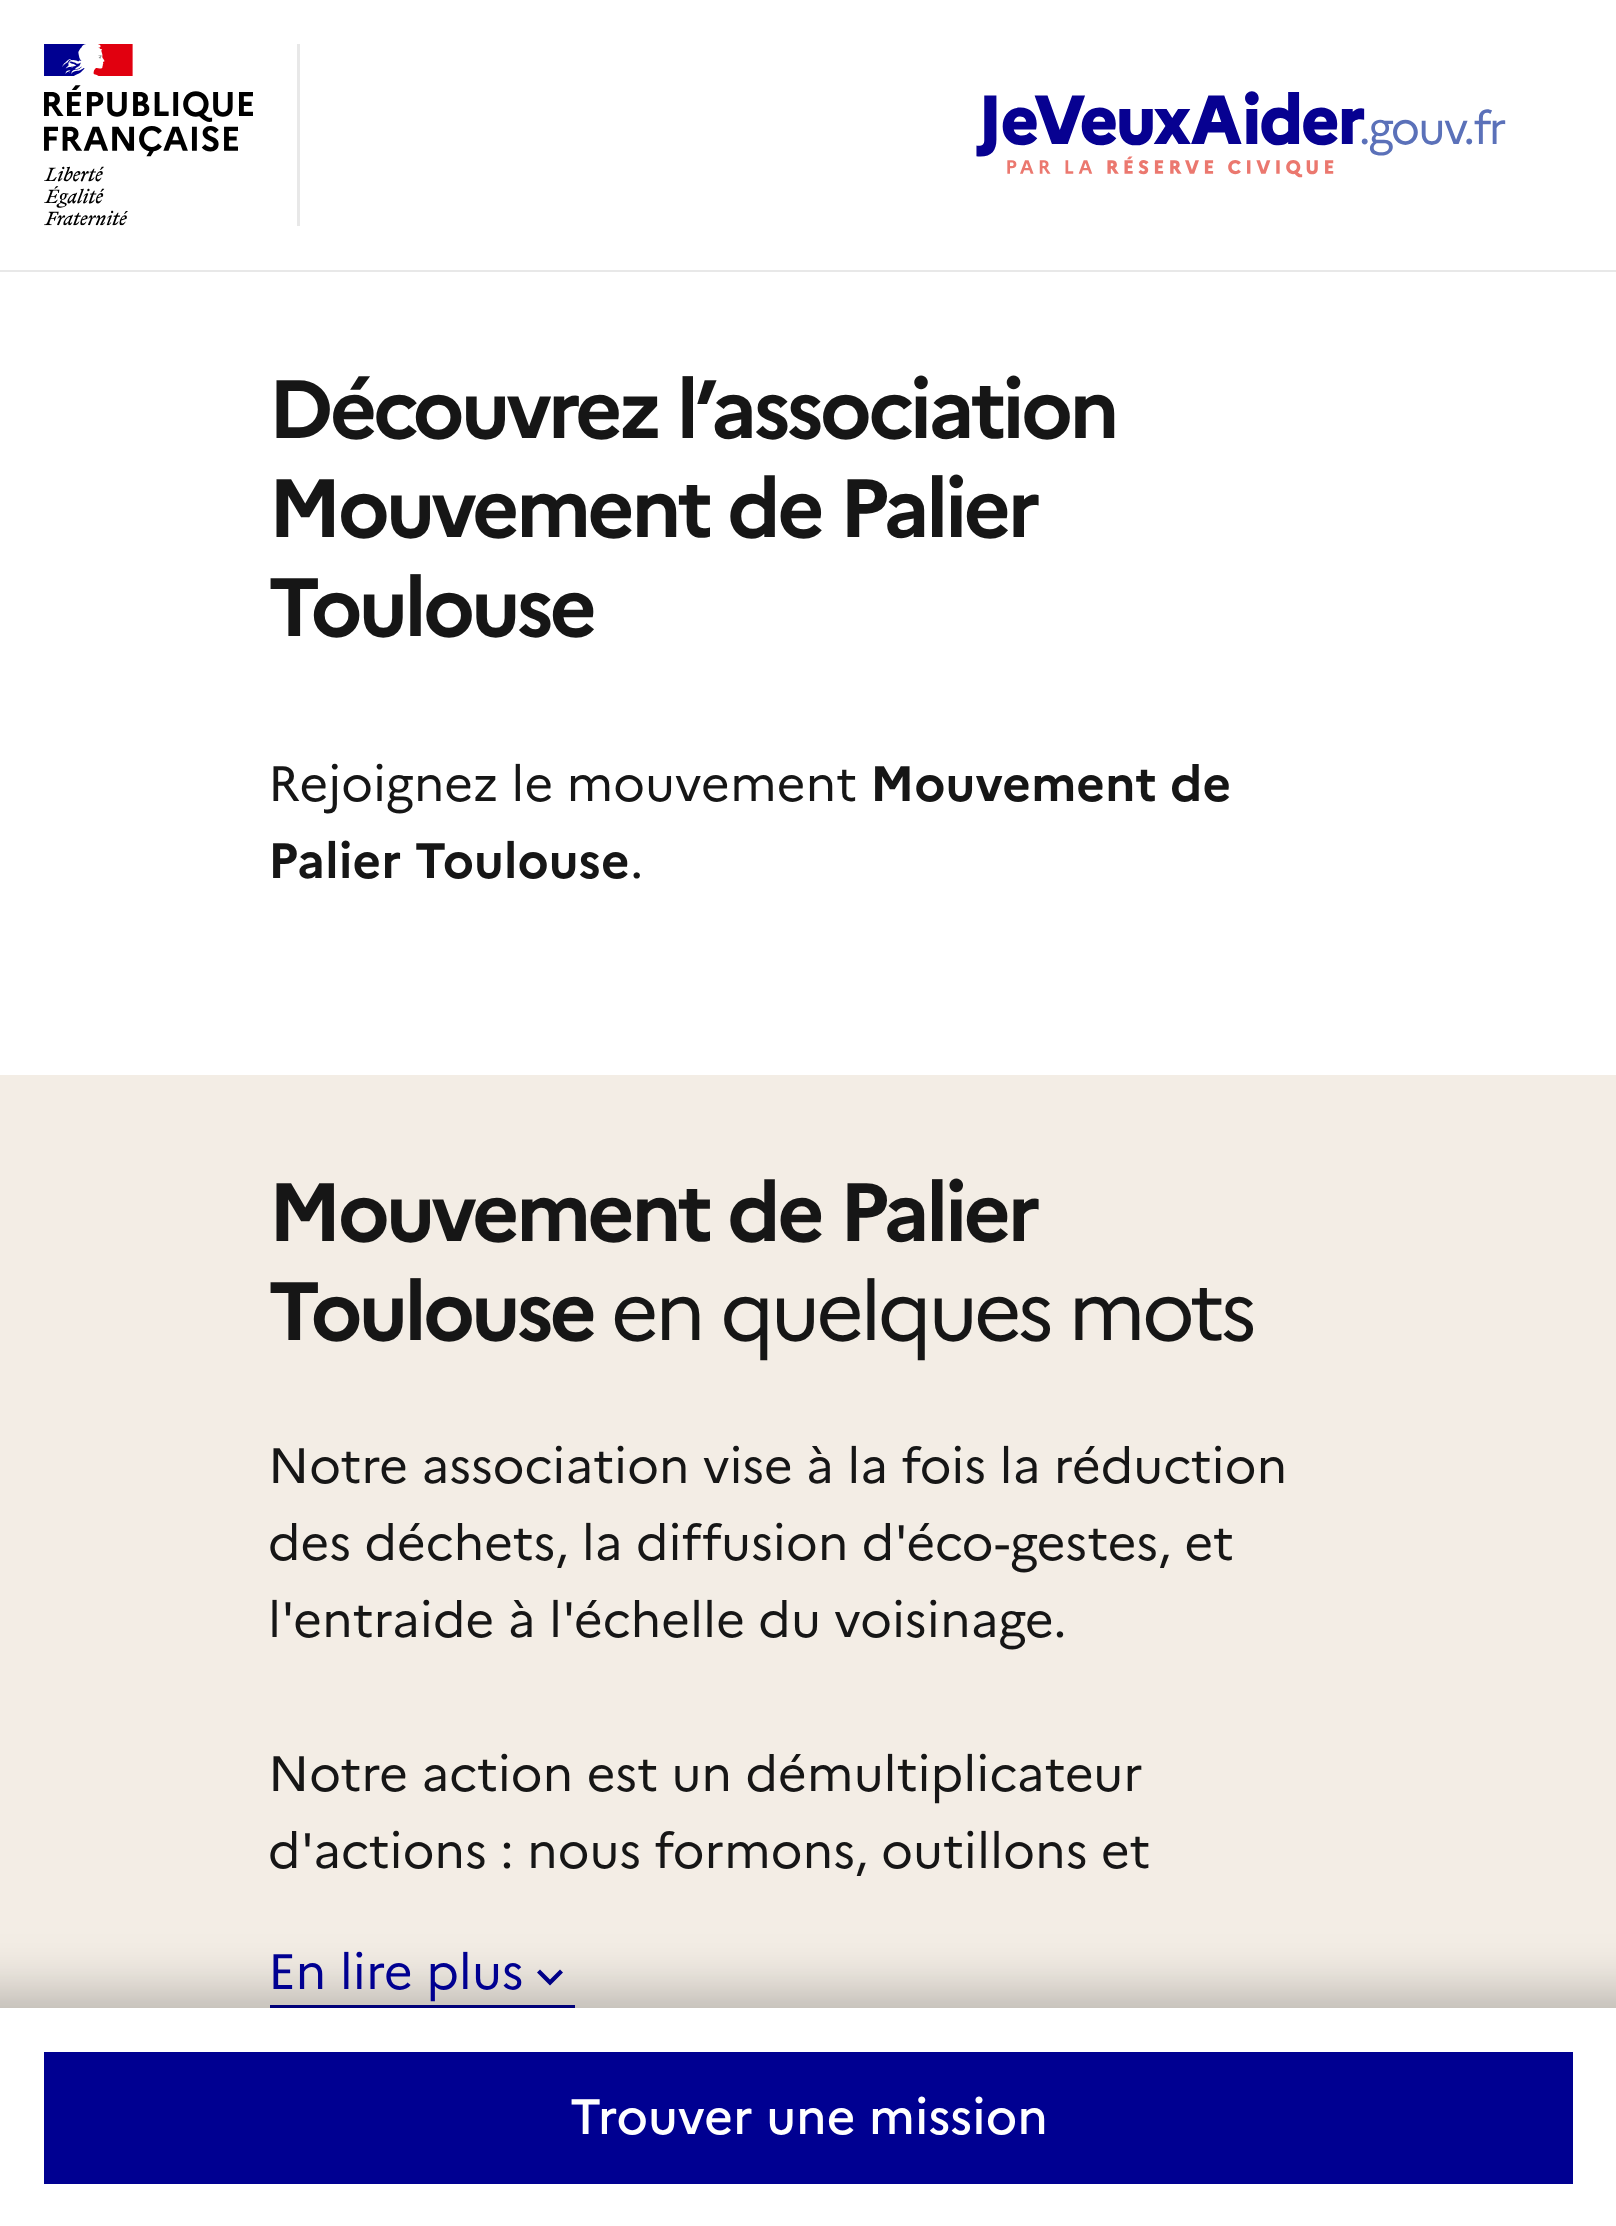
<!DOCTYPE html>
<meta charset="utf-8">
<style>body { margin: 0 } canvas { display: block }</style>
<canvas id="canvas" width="1616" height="2226"></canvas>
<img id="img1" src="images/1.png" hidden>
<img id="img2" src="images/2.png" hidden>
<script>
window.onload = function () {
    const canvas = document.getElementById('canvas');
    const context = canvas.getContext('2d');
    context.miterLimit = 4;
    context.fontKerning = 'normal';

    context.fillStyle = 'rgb(255, 255, 255)';
    context.fillRect(0, 0, 1616, 2226);
    context.fillStyle = 'rgb(232, 232, 232)';
    context.fillRect(0, 270, 1616, 2);
    context.fillRect(297, 44, 3, 182);
    context.drawImage(document.getElementById('img1'), 44, 44, 209, 182);
    context.drawImage(document.getElementById('img2'), 976, 91, 530, 87);
    context.fillStyle = 'rgb(243, 237, 229)';
    context.fillRect(0, 1075, 1616, 933);
    context.fillStyle = 'rgb(0, 0, 145)';
    context.fillRect(270, 2005, 305, 3);
    context.beginPath();
    context.moveTo(550, 1979.5);
    context.lineTo(560, 1969.5);
    context.lineTo(563, 1972.5);
    context.lineTo(550, 1985.5);
    context.lineTo(537, 1972.5);
    context.lineTo(540, 1969.5);
    context.closePath();
    context.fill();
    context.fillStyle = 'rgba(0, 0, 0, 0.25)';
    context.filter = 'blur(27.5px)';
    context.beginPath();
    context.rect(-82, 1994, 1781, 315);
    context.fill();
    context.filter = 'none';
    context.fillStyle = 'rgb(255, 255, 255)';
    context.fillRect(0, 2008, 1616, 218);
    context.fillStyle = 'rgb(0, 0, 145)';
    context.fillRect(44, 2052, 1529, 132);
    context.letterSpacing = '-4.1px';
    context.font = 'bold 82.5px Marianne';
    context.fillStyle = 'rgb(22, 22, 22)';
    context.fillText('Découvrez l’association', 268, 438);
    context.fillText('Mouvement de Palier', 268, 537);
    context.fillText('Toulouse', 268, 636);
    context.letterSpacing = '0px';
    context.font = '49.5px Marianne';
    context.fillText('Rejoignez le mouvement', 268, 801);
    context.font = 'bold 49.5px Marianne';
    context.fillText('Mouvement de', 870, 801);
    context.fillText('Palier Toulouse', 268, 878);
    context.font = '49.5px Marianne';
    context.fillText('.', 630, 878);
    context.font = '500 49.5px Marianne';
    context.fillStyle = 'rgb(255, 255, 255)';
    context.fillText('Trouver une mission', 570, 2134);
    context.letterSpacing = '-4.1px';
    context.font = 'bold 82.5px Marianne';
    context.fillStyle = 'rgb(22, 22, 22)';
    context.fillText('Mouvement de Palier', 268, 1241);
    context.fillText('Toulouse', 268, 1340);
    context.font = '82.5px Marianne';
    context.fillText('en quelques mots', 611, 1340);
    context.letterSpacing = '0px';
    context.font = '49.5px Marianne';
    context.fillText('Notre association vise à la fois la réduction', 268, 1483);
    context.fillText('des déchets, la diffusion d\'éco-gestes, et', 268, 1560);
    context.fillText('l\'entraide à l\'échelle du voisinage.', 268, 1637);
    context.fillText('Notre action est un démultiplicateur', 268, 1791);
    context.fillText('d\'actions : nous formons, outillons et', 268, 1868);
    context.fillStyle = 'rgb(0, 0, 145)';
    context.fillText('En lire plus', 268, 1989);
};
</script>
